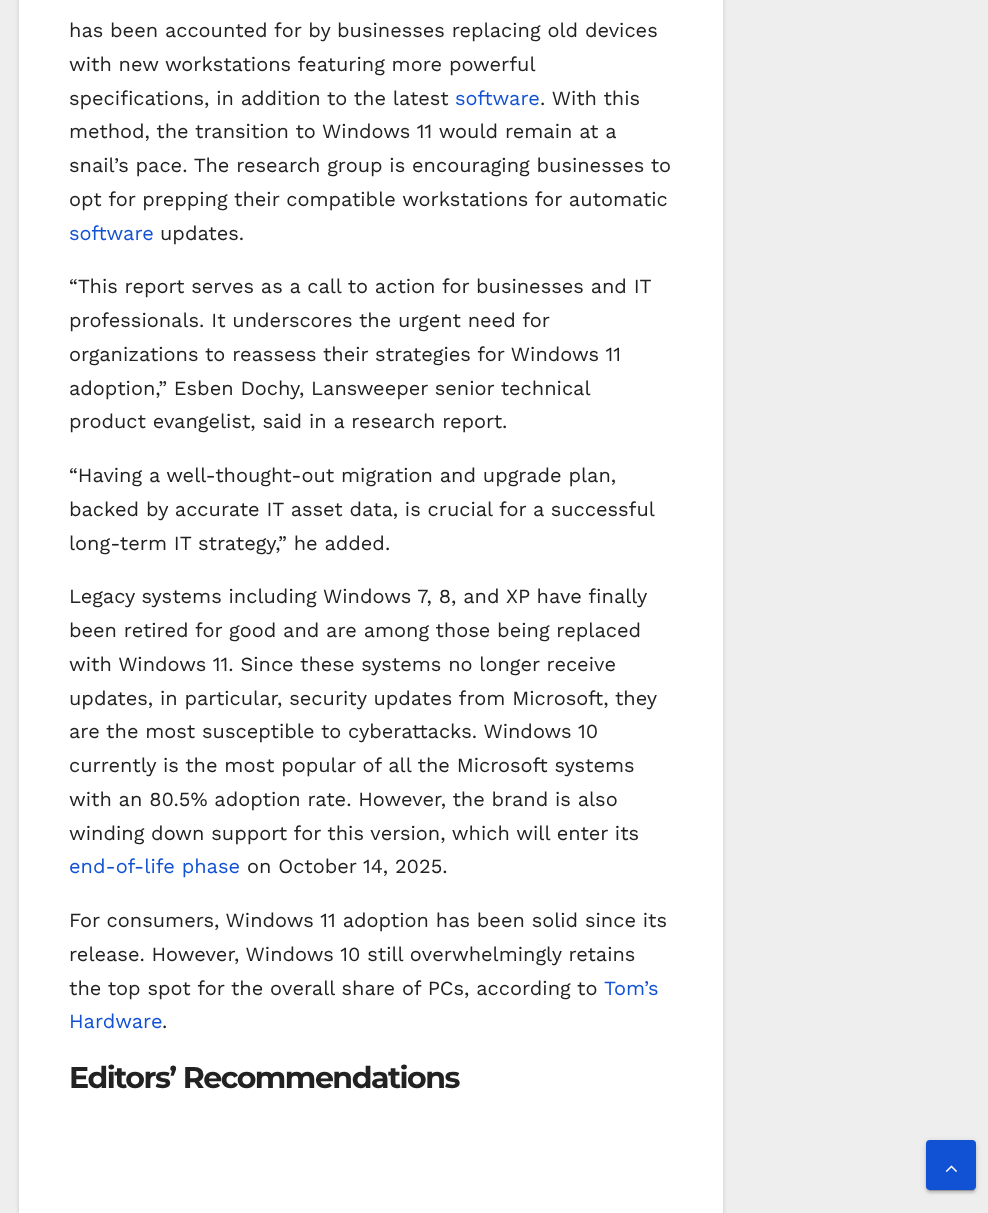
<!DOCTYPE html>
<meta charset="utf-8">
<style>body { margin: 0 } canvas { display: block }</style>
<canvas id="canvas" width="988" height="1213"></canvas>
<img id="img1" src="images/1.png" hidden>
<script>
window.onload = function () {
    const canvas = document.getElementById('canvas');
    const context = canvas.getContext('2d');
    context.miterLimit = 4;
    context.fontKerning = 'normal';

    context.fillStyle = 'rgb(238, 238, 238)';
    context.fillRect(0, 0, 988, 1213);
    context.fillStyle = 'rgba(0, 0, 0, 0.15)';
    context.filter = 'blur(2px)';
    context.beginPath();
    context.rect(19, -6, 704, 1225);
    context.fill();
    context.filter = 'none';
    context.fillStyle = 'rgb(255, 255, 255)';
    context.fillRect(19, 0, 704, 1213);
    context.fillStyle = 'rgba(0, 0, 0, 0.12)';
    context.filter = 'blur(3px)';
    context.beginPath();
    context.roundRect(926, 1141, 50, 50, 4);
    context.fill();
    context.filter = 'none';
    context.fillStyle = 'rgba(0, 0, 0, 0.2)';
    context.filter = 'blur(0.5px)';
    context.beginPath();
    context.roundRect(929, 1146, 45, 45, 1);
    context.fill();
    context.filter = 'none';
    context.fillStyle = 'rgba(0, 0, 0, 0.14)';
    context.filter = 'blur(1px)';
    context.beginPath();
    context.roundRect(926, 1143, 50, 50, 4);
    context.fill();
    context.filter = 'none';
    context.fillStyle = 'rgb(17, 81, 211)';
    context.beginPath();
    context.roundRect(927.5, 1141.5, 47, 47, 2.5);
    context.fill();
    context.strokeStyle = 'rgb(17, 81, 211)';
    context.lineWidth = 3;
    context.stroke();
    context.drawImage(document.getElementById('img1'), 945, 1165, 12, 7);
    context.font = '20px Work Sans';
    context.fillStyle = 'rgb(34, 34, 34)';
    context.fillText('has been accounted for by businesses replacing old devices', 69, 37);
    context.fillText('with new workstations featuring more powerful', 69, 71);
    context.fillText('specifications, in addition to the latest', 69, 105);
    context.fillStyle = 'rgb(17, 81, 211)';
    context.fillText('software', 455, 105);
    context.fillStyle = 'rgb(34, 34, 34)';
    context.fillText('. With this', 540, 105);
    context.fillText('method, the transition to Windows 11 would remain at a', 69, 138);
    context.fillText('snail’s pace. The research group is encouraging businesses to', 69, 172);
    context.fillText('opt for prepping their compatible workstations for automatic', 69, 206);
    context.fillStyle = 'rgb(17, 81, 211)';
    context.fillText('software', 69, 240);
    context.fillStyle = 'rgb(34, 34, 34)';
    context.fillText('updates.', 160, 240);
    context.fillText('“This report serves as a call to action for businesses and IT', 69, 293);
    context.fillText('professionals. It underscores the urgent need for', 69, 327);
    context.fillText('organizations to reassess their strategies for Windows 11', 69, 361);
    context.fillText('adoption,” Esben Dochy, Lansweeper senior technical', 69, 395);
    context.fillText('product evangelist, said in a research report.', 69, 428);
    context.fillText('“Having a well-thought-out migration and upgrade plan,', 69, 482);
    context.fillText('backed by accurate IT asset data, is crucial for a successful', 69, 516);
    context.fillText('long-term IT strategy,” he added.', 69, 550);
    context.fillText('Legacy systems including Windows 7, 8, and XP have finally', 69, 603);
    context.fillText('been retired for good and are among those being replaced', 69, 637);
    context.fillText('with Windows 11. Since these systems no longer receive', 69, 671);
    context.fillText('updates, in particular, security updates from Microsoft, they', 69, 705);
    context.fillText('are the most susceptible to cyberattacks. Windows 10', 69, 738);
    context.fillText('currently is the most popular of all the Microsoft systems', 69, 772);
    context.fillText('with an 80.5% adoption rate. However, the brand is also', 69, 806);
    context.fillText('winding down support for this version, which will enter its', 69, 840);
    context.fillStyle = 'rgb(17, 81, 211)';
    context.fillText('end-of-life phase', 69, 873);
    context.fillStyle = 'rgb(34, 34, 34)';
    context.fillText('on October 14, 2025.', 247, 873);
    context.fillText('For consumers, Windows 11 adoption has been solid since its', 69, 927);
    context.fillText('release. However, Windows 10 still overwhelmingly retains', 69, 961);
    context.fillText('the top spot for the overall share of PCs, according to', 69, 995);
    context.fillStyle = 'rgb(17, 81, 211)';
    context.fillText('Tom’s', 604, 995);
    context.fillText('Hardware', 69, 1028);
    context.fillStyle = 'rgb(34, 34, 34)';
    context.fillText('.', 162, 1028);
    context.letterSpacing = '-1.5px';
    context.font = 'bold 30px Montserrat';
    context.fillText('Editors’ Recommendations', 69, 1088);
};
</script>
